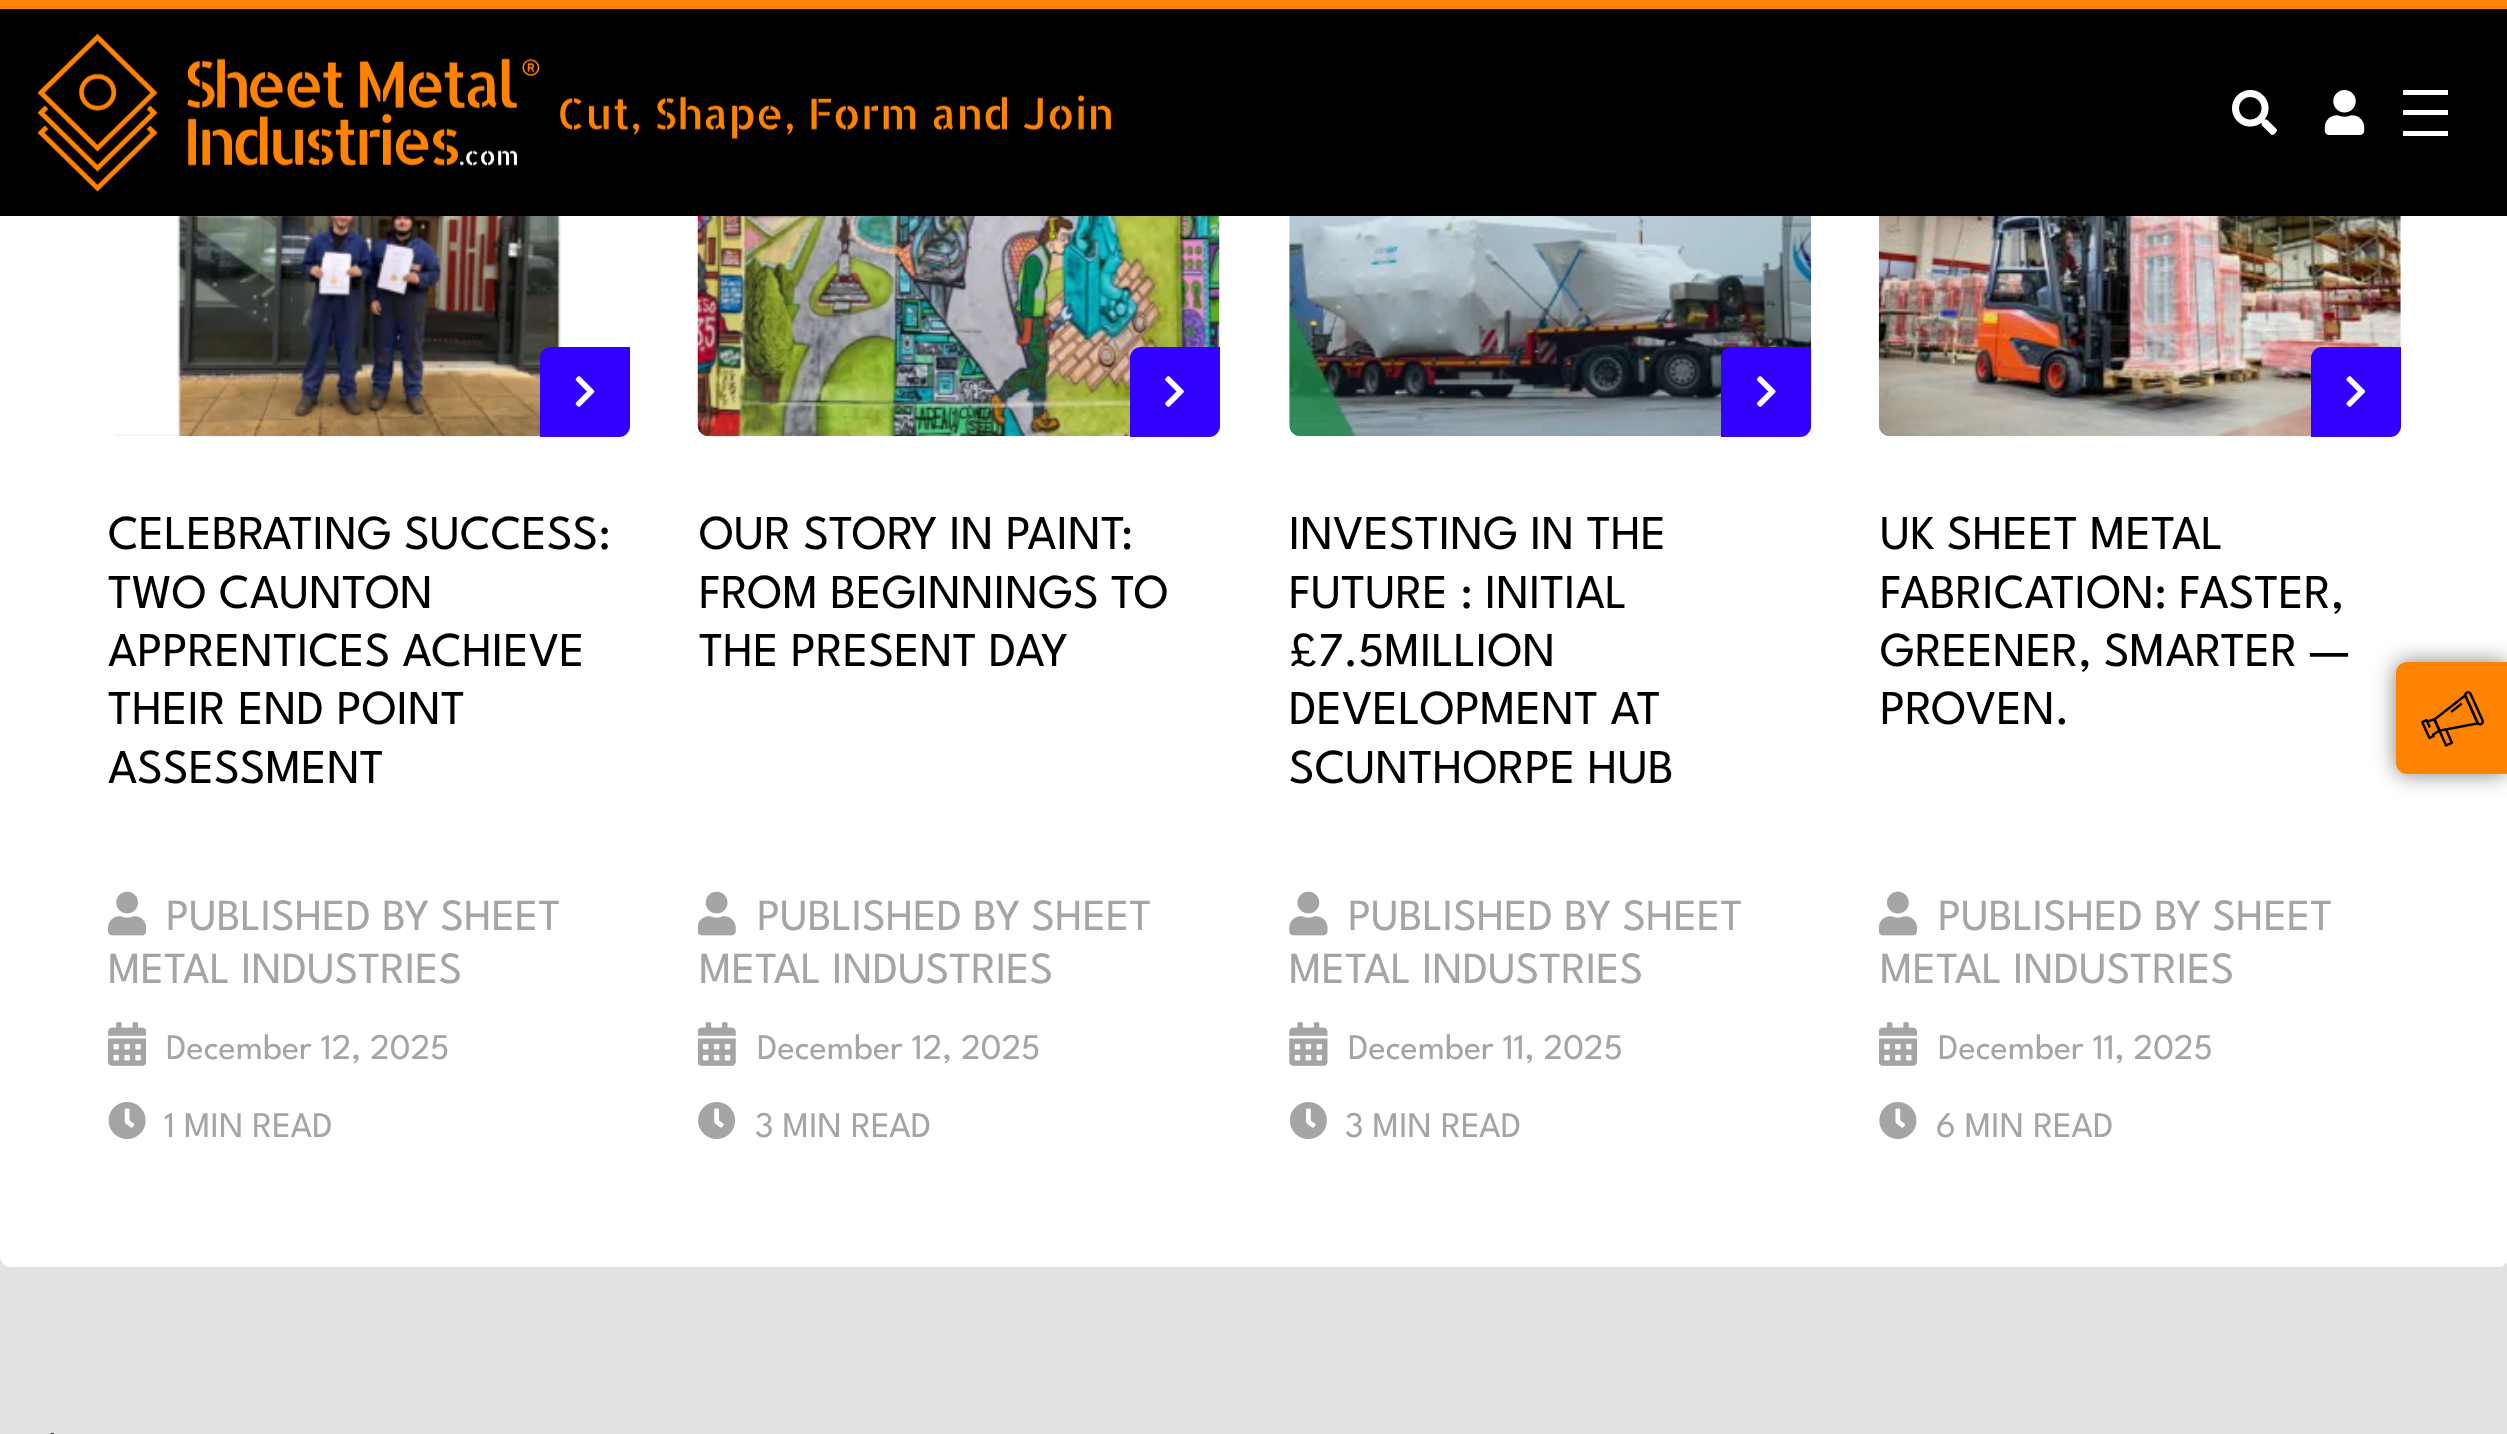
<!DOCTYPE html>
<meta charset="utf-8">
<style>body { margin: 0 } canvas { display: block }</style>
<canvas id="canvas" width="2507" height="1434"></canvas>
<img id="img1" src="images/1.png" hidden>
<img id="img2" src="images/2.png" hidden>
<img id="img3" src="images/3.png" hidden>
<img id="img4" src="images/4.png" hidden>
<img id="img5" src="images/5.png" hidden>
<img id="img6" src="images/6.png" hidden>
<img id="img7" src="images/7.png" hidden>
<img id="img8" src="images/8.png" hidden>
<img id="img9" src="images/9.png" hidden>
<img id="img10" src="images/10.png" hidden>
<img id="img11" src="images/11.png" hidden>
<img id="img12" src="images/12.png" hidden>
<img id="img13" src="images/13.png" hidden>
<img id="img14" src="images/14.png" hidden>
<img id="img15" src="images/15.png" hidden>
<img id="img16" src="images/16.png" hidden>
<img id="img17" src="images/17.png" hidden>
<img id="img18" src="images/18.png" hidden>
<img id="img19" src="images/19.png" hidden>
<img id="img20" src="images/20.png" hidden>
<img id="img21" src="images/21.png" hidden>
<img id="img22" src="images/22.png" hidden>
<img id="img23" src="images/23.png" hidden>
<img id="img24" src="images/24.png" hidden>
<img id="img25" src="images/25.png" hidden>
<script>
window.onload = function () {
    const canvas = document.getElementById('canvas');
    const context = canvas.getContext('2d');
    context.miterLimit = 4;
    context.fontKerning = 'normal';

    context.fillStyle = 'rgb(226, 226, 226)';
    context.fillRect(0, 0, 2507, 1434);
    context.fillStyle = 'rgb(255, 255, 255)';
    context.beginPath();
    context.roundRect(0, -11, 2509, 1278, 11);
    context.fill();
    context.fillStyle = 'rgb(255, 130, 0)';
    context.fillRect(0, 0, 2507, 9);
    context.fillStyle = 'rgb(0, 0, 0)';
    context.fillRect(0, 9, 2507, 207);
    context.drawImage(document.getElementById('img1'), 37, 33, 1074, 159);
    context.drawImage(document.getElementById('img2'), 2232, 90, 45, 45);
    context.drawImage(document.getElementById('img3'), 2324, 90, 41, 45);
    context.fillStyle = 'rgb(255, 255, 255)';
    context.fillRect(2403, 90, 45, 5);
    context.fillRect(2403, 110, 45, 5);
    context.fillRect(2403, 131, 45, 5);
    context.drawImage(document.getElementById('img4'), 114, 216, 511, 221);
    context.fillStyle = 'rgb(49, 0, 255)';
    context.beginPath();
    context.roundRect(540, 347, 90, 90, [11, 0, 11, 0]);
    context.fill();
    context.drawImage(document.getElementById('img5'), 575, 376, 20, 31);
    context.drawImage(document.getElementById('img6'), 108, 891, 38, 45);
    context.drawImage(document.getElementById('img7'), 108, 1022, 38, 44);
    context.drawImage(document.getElementById('img8'), 108, 1102, 38, 37);
    context.drawImage(document.getElementById('img9'), 697, 216, 523, 221);
    context.beginPath();
    context.roundRect(1130, 347, 90, 90, [11, 0, 11, 0]);
    context.fill();
    context.drawImage(document.getElementById('img10'), 1165, 376, 19, 31);
    context.drawImage(document.getElementById('img11'), 698, 891, 38, 45);
    context.drawImage(document.getElementById('img12'), 698, 1022, 38, 44);
    context.drawImage(document.getElementById('img13'), 698, 1102, 38, 37);
    context.drawImage(document.getElementById('img14'), 1289, 216, 523, 221);
    context.beginPath();
    context.roundRect(1721, 347, 90, 90, [11, 0, 11, 0]);
    context.fill();
    context.drawImage(document.getElementById('img15'), 1756, 376, 20, 31);
    context.drawImage(document.getElementById('img16'), 1289, 891, 39, 45);
    context.drawImage(document.getElementById('img17'), 1289, 1022, 39, 44);
    context.drawImage(document.getElementById('img18'), 1289, 1102, 38, 37);
    context.drawImage(document.getElementById('img19'), 1878, 216, 523, 221);
    context.beginPath();
    context.roundRect(2311, 347, 90, 90, [11, 0, 11, 0]);
    context.fill();
    context.drawImage(document.getElementById('img20'), 2346, 376, 20, 31);
    context.drawImage(document.getElementById('img21'), 1879, 891, 38, 45);
    context.drawImage(document.getElementById('img22'), 1879, 1022, 38, 44);
    context.drawImage(document.getElementById('img23'), 1879, 1102, 38, 37);
    context.drawImage(document.getElementById('img24'), 50, 1432, 5, 2);
    context.fillStyle = 'rgba(0, 0, 0, 0.5)';
    context.filter = 'blur(11px)';
    context.beginPath();
    context.roundRect(2396, 662, 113, 112, 11);
    context.fill();
    context.filter = 'none';
    context.fillStyle = 'rgb(255, 130, 0)';
    context.beginPath();
    context.moveTo(2407, 662);
    context.lineTo(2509, 662);
    context.lineTo(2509, 774);
    context.lineTo(2407, 774);
    context.bezierCurveTo(2401, 774, 2396, 769, 2396, 763);
    context.lineTo(2396, 673);
    context.bezierCurveTo(2396, 667, 2401, 662, 2407, 662);
    context.closePath();
    context.fill();
    context.drawImage(document.getElementById('img25'), 2421, 691, 63, 56);
    context.font = '48.6px League Spartan';
    context.fillStyle = 'rgb(0, 0, 0)';
    context.fillText('CELEBRATING SUCCESS:', 108, 549);
    context.fillText('TWO CAUNTON', 108, 608);
    context.fillText('APPRENTICES ACHIEVE', 108, 666);
    context.fillText('THEIR END POINT', 108, 724);
    context.fillText('ASSESSMENT', 108, 783);
    context.font = '44.5px League Spartan';
    context.fillStyle = 'rgb(165, 165, 165)';
    context.fillText('PUBLISHED BY SHEET', 166, 930);
    context.fillText('METAL INDUSTRIES', 108, 983);
    context.font = '36px League Spartan';
    context.fillText('December 12, 2025', 166, 1059);
    context.fillText('1 MIN READ', 164, 1137);
    context.font = '48.6px League Spartan';
    context.fillStyle = 'rgb(0, 0, 0)';
    context.fillText('OUR STORY IN PAINT:', 699, 549);
    context.fillText('FROM BEGINNINGS TO', 699, 608);
    context.fillText('THE PRESENT DAY', 699, 666);
    context.font = '44.5px League Spartan';
    context.fillStyle = 'rgb(165, 165, 165)';
    context.fillText('PUBLISHED BY SHEET', 757, 930);
    context.fillText('METAL INDUSTRIES', 699, 983);
    context.font = '36px League Spartan';
    context.fillText('December 12, 2025', 757, 1059);
    context.fillText('3 MIN READ', 755, 1137);
    context.font = '48.6px League Spartan';
    context.fillStyle = 'rgb(0, 0, 0)';
    context.fillText('INVESTING IN THE', 1289, 549);
    context.fillText('FUTURE : INITIAL', 1289, 608);
    context.fillText('£7.5MILLION', 1289, 666);
    context.fillText('DEVELOPMENT AT', 1289, 724);
    context.fillText('SCUNTHORPE HUB', 1289, 783);
    context.font = '44.5px League Spartan';
    context.fillStyle = 'rgb(165, 165, 165)';
    context.fillText('PUBLISHED BY SHEET', 1348, 930);
    context.fillText('METAL INDUSTRIES', 1289, 983);
    context.font = '36px League Spartan';
    context.fillText('December 11, 2025', 1348, 1059);
    context.fillText('3 MIN READ', 1345, 1137);
    context.font = '48.6px League Spartan';
    context.fillStyle = 'rgb(0, 0, 0)';
    context.fillText('UK SHEET METAL', 1880, 549);
    context.fillText('FABRICATION: FASTER,', 1880, 608);
    context.fillText('GREENER, SMARTER —', 1880, 666);
    context.fillText('PROVEN.', 1880, 724);
    context.font = '44.5px League Spartan';
    context.fillStyle = 'rgb(165, 165, 165)';
    context.fillText('PUBLISHED BY SHEET', 1938, 930);
    context.fillText('METAL INDUSTRIES', 1880, 983);
    context.font = '36px League Spartan';
    context.fillText('December 11, 2025', 1938, 1059);
    context.fillText('6 MIN READ', 1936, 1137);
};
</script>
